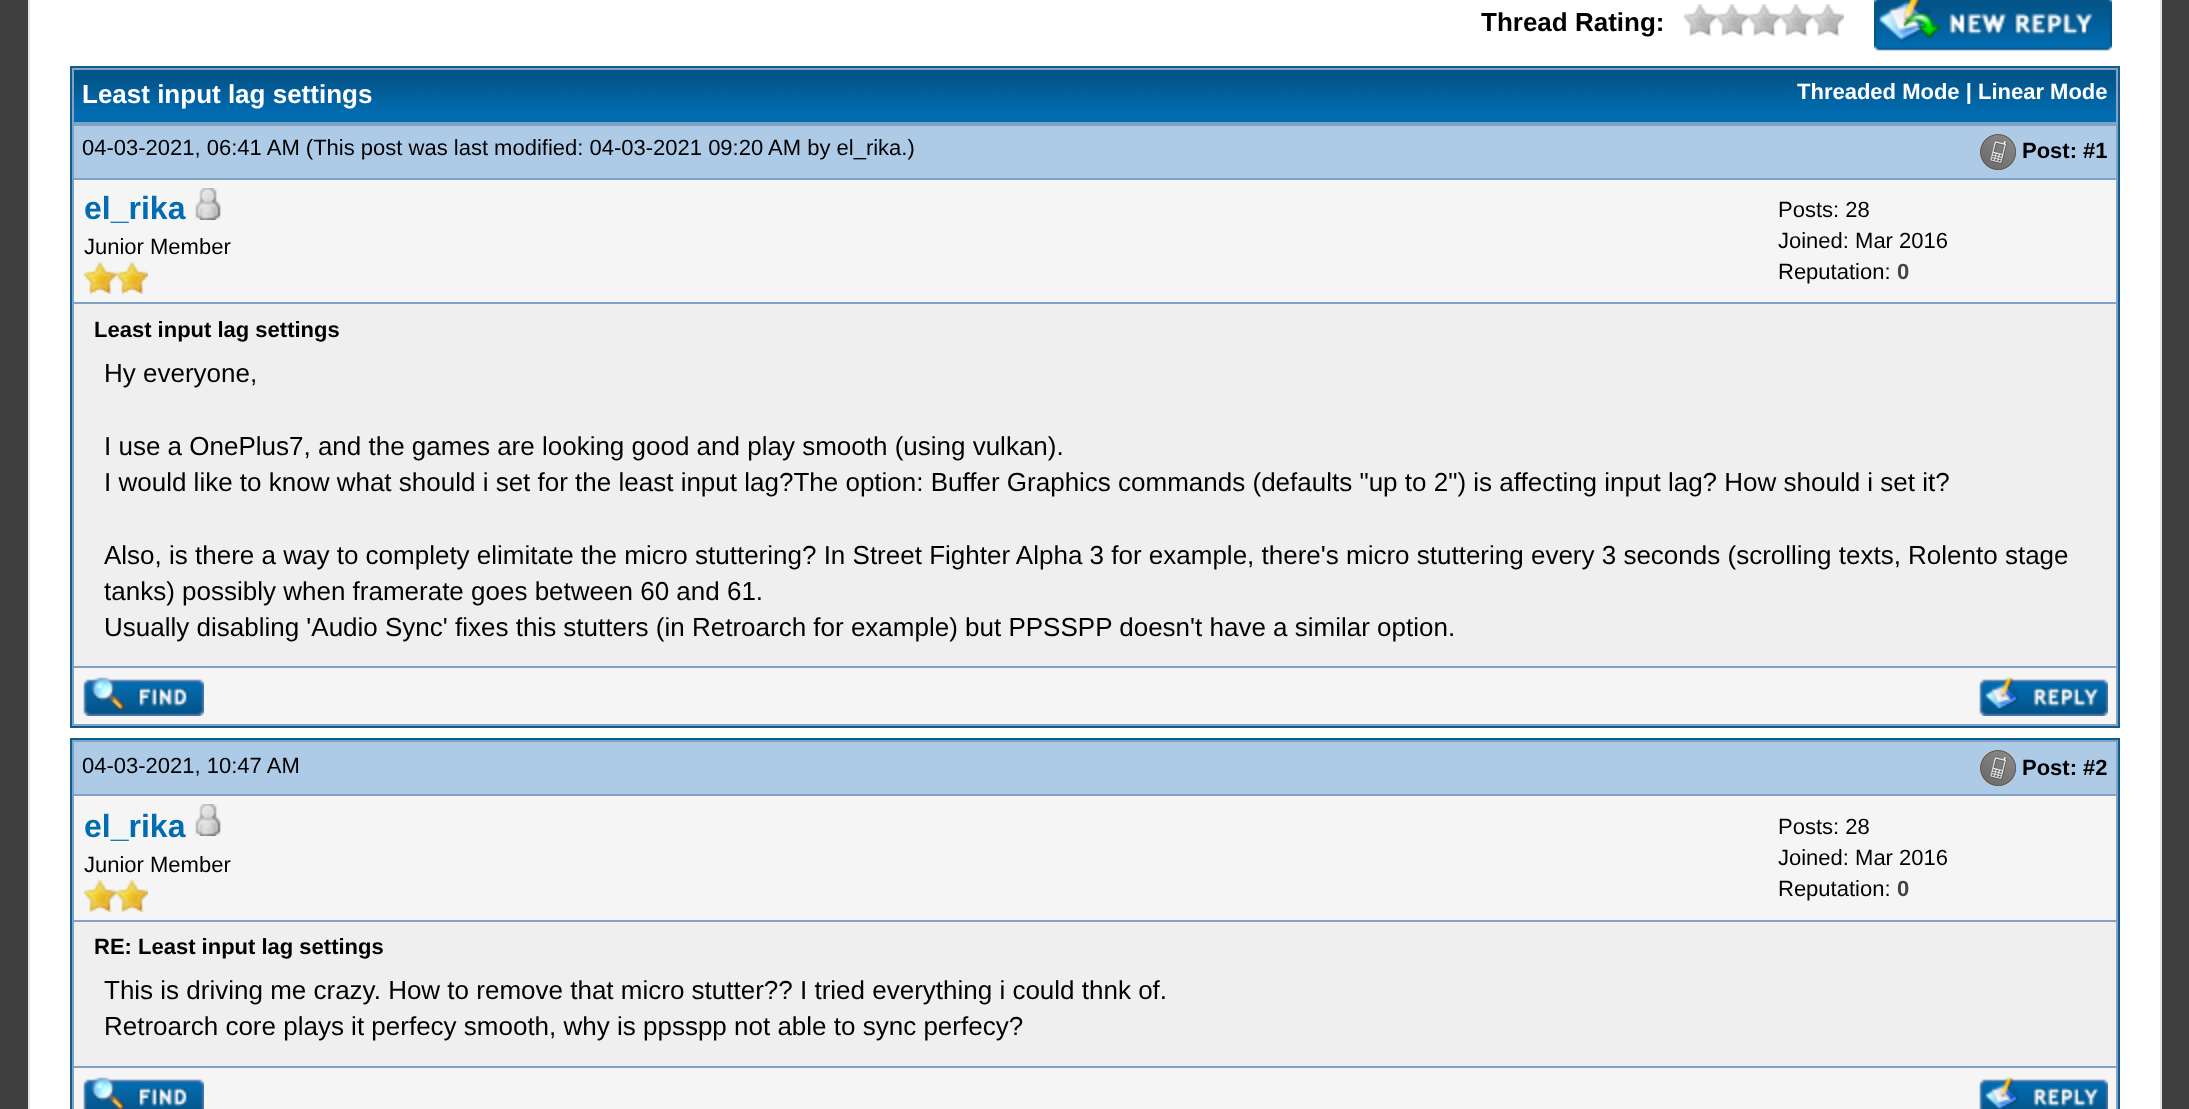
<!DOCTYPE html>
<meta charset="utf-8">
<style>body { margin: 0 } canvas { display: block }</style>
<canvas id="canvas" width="2189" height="1109"></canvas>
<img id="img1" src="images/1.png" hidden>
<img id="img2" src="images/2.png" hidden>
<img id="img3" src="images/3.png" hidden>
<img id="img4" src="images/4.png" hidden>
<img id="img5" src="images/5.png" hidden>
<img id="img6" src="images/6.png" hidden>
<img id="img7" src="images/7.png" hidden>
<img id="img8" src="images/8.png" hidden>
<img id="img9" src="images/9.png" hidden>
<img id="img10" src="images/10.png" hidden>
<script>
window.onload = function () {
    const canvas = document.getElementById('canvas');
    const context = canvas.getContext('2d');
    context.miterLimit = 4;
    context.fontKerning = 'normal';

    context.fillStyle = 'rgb(63, 63, 63)';
    context.fillRect(0, 0, 2189, 1109);
    context.fillStyle = 'rgb(255, 255, 255)';
    context.beginPath();
    context.rect(29, -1, 2132, 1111);
    context.fill();
    context.strokeStyle = 'rgb(228, 228, 228)';
    context.lineWidth = 2;
    context.stroke();
    context.drawImage(document.getElementById('img1'), 1684, 4, 160, 32);
    context.drawImage(document.getElementById('img2'), 1874, 0, 238, 51);
    context.fillStyle = 'rgb(129, 162, 196)';
    context.fillRect(72, 68, 2046, 658);
    context.fillStyle = 'rgb(15, 92, 142)';
    context.fillRect(70, 66, 2050, 2);
    context.fillRect(2118, 66, 2, 662);
    context.fillRect(70, 66, 2, 58);
    context.fillStyle = 'rgb(2, 108, 177)';
    context.fillRect(74, 111, 2042, 11);
    context.drawImage(document.getElementById('img3'), 74, 70, 2042, 41);
    context.fillStyle = 'rgb(15, 92, 142)';
    context.fillRect(70, 726, 2050, 2);
    context.fillRect(70, 124, 2, 604);
    context.fillStyle = 'rgb(173, 203, 231)';
    context.fillRect(74, 126, 2042, 52);
    context.drawImage(document.getElementById('img4'), 1980, 134, 36, 36);
    context.fillStyle = 'rgb(245, 245, 245)';
    context.fillRect(74, 180, 2042, 122);
    context.drawImage(document.getElementById('img5'), 195, 188, 26, 32);
    context.drawImage(document.getElementById('img6'), 84, 262, 32, 32);
    context.drawImage(document.getElementById('img6'), 116, 262, 32, 32);
    context.fillStyle = 'rgb(239, 239, 239)';
    context.fillRect(74, 304, 2042, 362);
    context.fillStyle = 'rgb(245, 245, 245)';
    context.fillRect(74, 668, 2042, 56);
    context.drawImage(document.getElementById('img7'), 83, 677, 121, 39);
    context.drawImage(document.getElementById('img8'), 1979, 677, 129, 39);
    context.fillStyle = 'rgb(129, 162, 196)';
    context.beginPath();
    context.rect(71, 739, 2048, 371);
    context.fill();
    context.strokeStyle = 'rgb(15, 92, 142)';
    context.stroke();
    context.fillStyle = 'rgb(173, 203, 231)';
    context.fillRect(74, 742, 2042, 52);
    context.drawImage(document.getElementById('img4'), 1980, 750, 36, 36);
    context.fillStyle = 'rgb(245, 245, 245)';
    context.fillRect(74, 796, 2042, 124);
    context.drawImage(document.getElementById('img5'), 195, 804, 26, 32);
    context.drawImage(document.getElementById('img6'), 84, 880, 32, 32);
    context.drawImage(document.getElementById('img6'), 116, 880, 32, 32);
    context.fillStyle = 'rgb(239, 239, 239)';
    context.fillRect(74, 922, 2042, 144);
    context.fillStyle = 'rgb(245, 245, 245)';
    context.fillRect(74, 1068, 2042, 41);
    context.drawImage(document.getElementById('img9'), 83, 1077, 121, 32);
    context.drawImage(document.getElementById('img10'), 1979, 1077, 129, 32);
    context.font = 'bold 26px Liberation Sans';
    context.fillStyle = 'rgb(0, 0, 0)';
    context.fillText('Thread Rating:', 1481, 31);
    context.fillStyle = 'rgb(255, 255, 255)';
    context.fillText('Least input lag settings', 82, 103);
    context.font = 'bold 22px Liberation Sans';
    context.fillText('Threaded Mode | Linear Mode', 1797, 99);
    context.font = '22px Liberation Sans';
    context.fillStyle = 'rgb(0, 0, 0)';
    context.fillText('04-03-2021, 06:41 AM (This post was last modified: 04-03-2021 09:20 AM by el_rika.)', 82, 155);
    context.font = 'bold 22px Liberation Sans';
    context.fillText('Post: #1', 2022, 158);
    context.font = 'bold 32px Liberation Sans';
    context.fillStyle = 'rgb(2, 108, 177)';
    context.fillText('el_rika', 84, 219);
    context.font = '22px Liberation Sans';
    context.fillStyle = 'rgb(0, 0, 0)';
    context.fillText('Junior Member', 84, 254);
    context.fillText('Posts: 28', 1778, 217);
    context.fillText('Joined: Mar 2016', 1778, 248);
    context.fillText('Reputation:', 1778, 279);
    context.font = 'bold 22px Liberation Sans';
    context.fillStyle = 'rgb(68, 68, 68)';
    context.fillText('0', 1897, 279);
    context.fillStyle = 'rgb(0, 0, 0)';
    context.fillText('Least input lag settings', 94, 337);
    context.font = '26px Liberation Sans';
    context.fillText('Hy everyone,', 104, 382);
    context.fillText('I use a OnePlus7, and the games are looking good and play smooth (using vulkan).', 104, 455);
    context.fillText('I would like to know what should i set for the least input lag?The option: Buffer Graphics commands (defaults "up to 2") is affecting input lag? How should i set it?', 104, 491);
    context.fillText('Also, is there a way to complety elimitate the micro stuttering? In Street Fighter Alpha 3 for example, there\'s micro stuttering every 3 seconds (scrolling texts, Rolento stage', 104, 564);
    context.fillText('tanks) possibly when framerate goes between 60 and 61.', 104, 600);
    context.fillText('Usually disabling \'Audio Sync\' fixes this stutters (in Retroarch for example) but PPSSPP doesn\'t have a similar option.', 104, 636);
    context.font = '22px Liberation Sans';
    context.fillText('04-03-2021, 10:47 AM', 82, 773);
    context.font = 'bold 22px Liberation Sans';
    context.fillText('Post: #2', 2022, 775);
    context.font = 'bold 32px Liberation Sans';
    context.fillStyle = 'rgb(2, 108, 177)';
    context.fillText('el_rika', 84, 837);
    context.font = '22px Liberation Sans';
    context.fillStyle = 'rgb(0, 0, 0)';
    context.fillText('Junior Member', 84, 872);
    context.fillText('Posts: 28', 1778, 834);
    context.fillText('Joined: Mar 2016', 1778, 865);
    context.fillText('Reputation:', 1778, 896);
    context.font = 'bold 22px Liberation Sans';
    context.fillStyle = 'rgb(68, 68, 68)';
    context.fillText('0', 1897, 896);
    context.fillStyle = 'rgb(0, 0, 0)';
    context.fillText('RE: Least input lag settings', 94, 954);
    context.font = '26px Liberation Sans';
    context.fillText('This is driving me crazy. How to remove that micro stutter?? I tried everything i could thnk of.', 104, 999);
    context.fillText('Retroarch core plays it perfecy smooth, why is ppsspp not able to sync perfecy?', 104, 1035);
};
</script>
